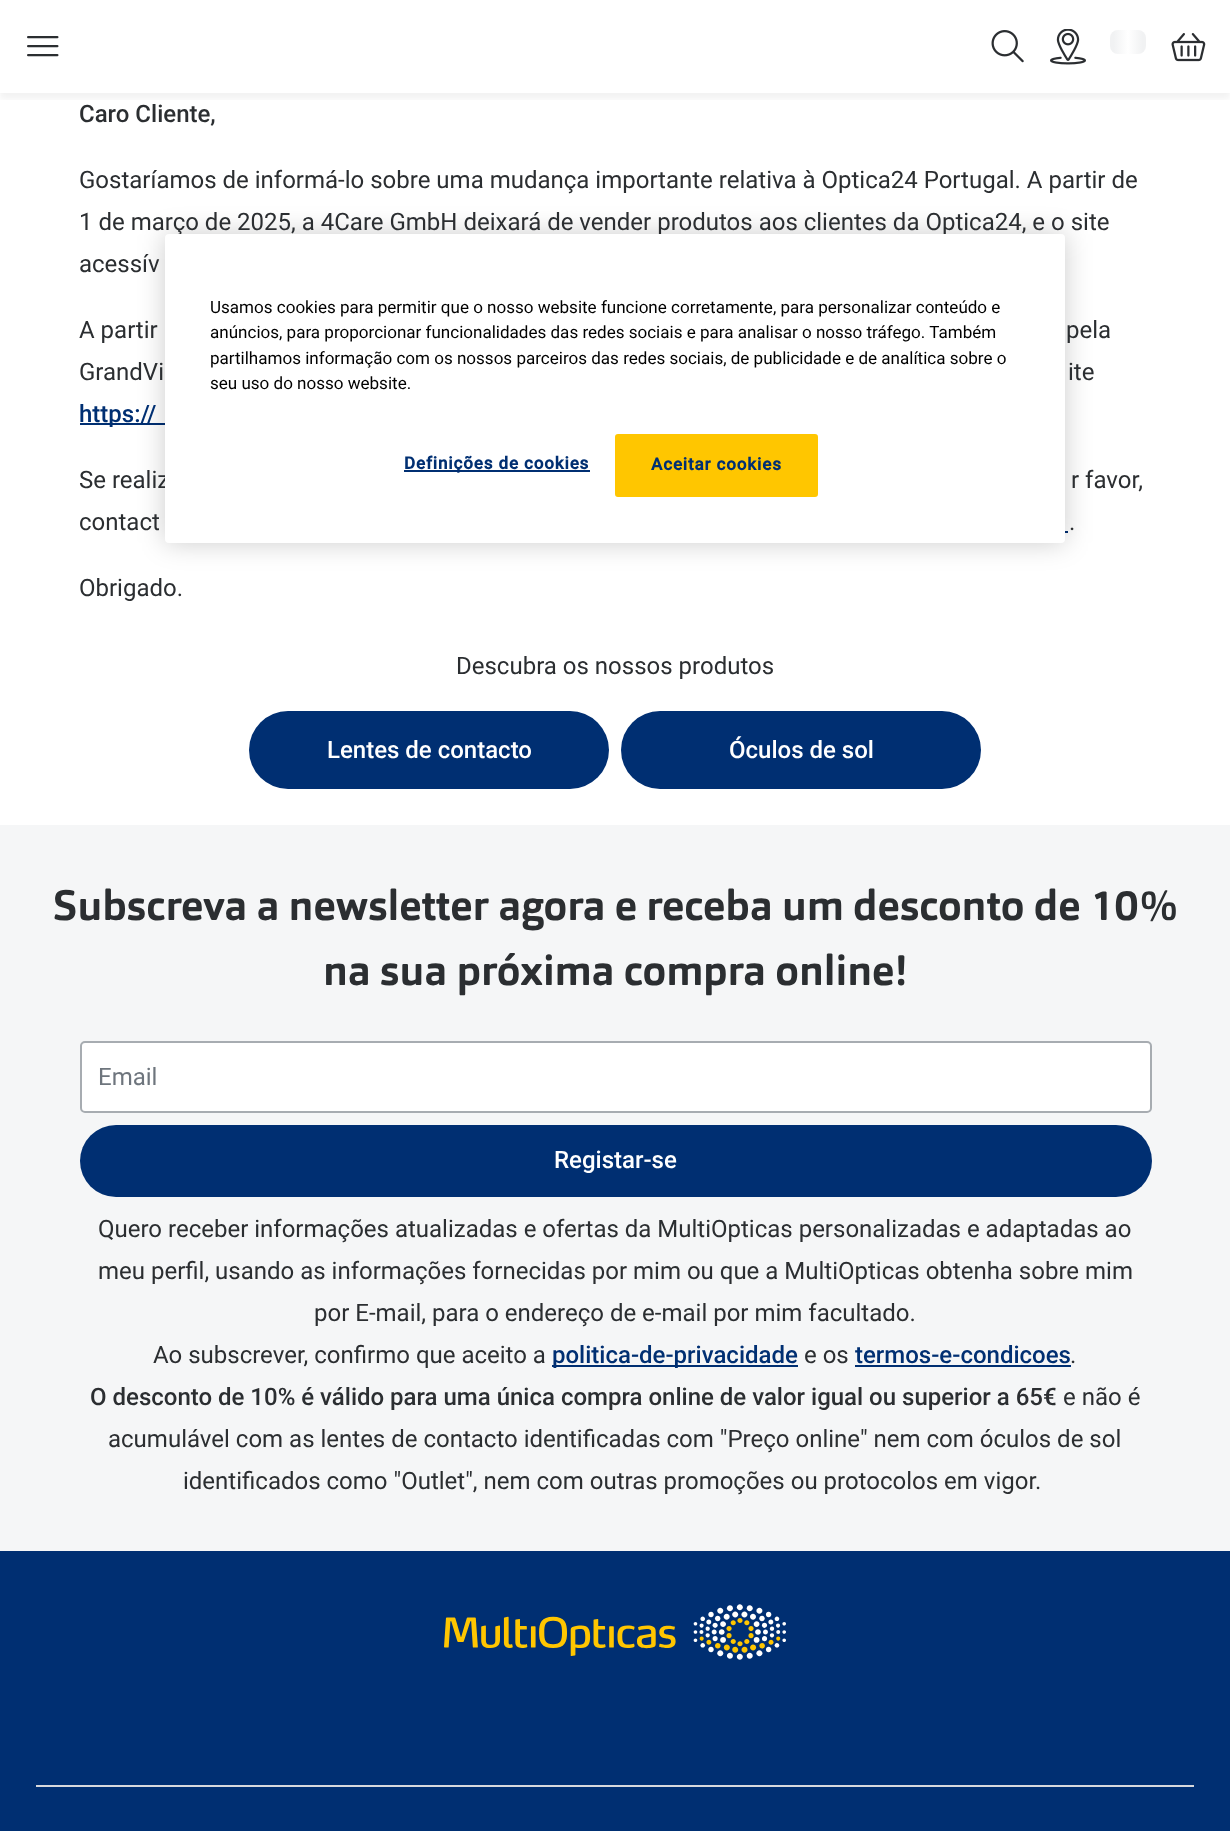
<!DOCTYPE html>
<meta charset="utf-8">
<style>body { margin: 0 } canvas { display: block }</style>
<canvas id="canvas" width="1230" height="1831"></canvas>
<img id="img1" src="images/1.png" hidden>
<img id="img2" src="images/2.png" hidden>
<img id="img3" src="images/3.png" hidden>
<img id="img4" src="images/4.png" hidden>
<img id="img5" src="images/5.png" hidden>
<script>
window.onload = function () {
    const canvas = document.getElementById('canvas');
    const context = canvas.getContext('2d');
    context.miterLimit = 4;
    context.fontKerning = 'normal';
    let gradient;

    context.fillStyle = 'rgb(255, 255, 255)';
    context.fillRect(0, 0, 1230, 1831);
    context.save();
    context.beginPath();
    context.rect(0, 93, 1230, 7);
    context.clip();
    context.fillStyle = 'rgba(0, 0, 0, 0.05)';
    context.filter = 'blur(3px)';
    context.beginPath();
    context.rect(0, 6, 1230, 93);
    context.fill();
    context.filter = 'none';
    context.restore();
    context.drawImage(document.getElementById('img1'), 27, 36, 32, 21);
    context.drawImage(document.getElementById('img2'), 991, 30, 33, 33);
    context.drawImage(document.getElementById('img3'), 1050, 29, 36, 36);
    gradient = context.createLinearGradient(1110, 30, 1146, 30);
    gradient.addColorStop(0.1, 'rgb(241, 242, 243)');
    gradient.addColorStop(0.5, 'rgb(255, 255, 255)');
    gradient.addColorStop(0.9, 'rgb(241, 242, 243)');
    context.fillStyle = gradient;
    context.beginPath();
    context.roundRect(1110, 30, 36, 24, 8);
    context.fill();
    context.drawImage(document.getElementById('img4'), 1171, 33, 35, 29);
    context.fillStyle = 'rgb(0, 47, 114)';
    context.fillRect(80, 423, 85, 2);
    context.fillRect(1065, 531, 3, 2);
    context.beginPath();
    context.roundRect(249, 711, 360, 78, 39);
    context.fill();
    context.beginPath();
    context.roundRect(621, 711, 360, 78, 39);
    context.fill();
    context.fillStyle = 'rgb(245, 246, 247)';
    context.fillRect(0, 825, 1230, 726);
    context.fillStyle = 'rgb(255, 255, 255)';
    context.beginPath();
    context.roundRect(81, 1042, 1070, 70, 4);
    context.fill();
    context.strokeStyle = 'rgb(167, 172, 177)';
    context.lineWidth = 2;
    context.stroke();
    context.fillStyle = 'rgb(0, 47, 114)';
    context.beginPath();
    context.roundRect(80, 1125, 1072, 72, 36);
    context.fill();
    context.fillRect(552, 1365, 246, 2);
    context.fillRect(855, 1365, 216, 2);
    context.fillRect(0, 1551, 1230, 280);
    context.drawImage(document.getElementById('img5'), 444, 1604, 342, 56);
    context.fillStyle = 'rgb(215, 217, 221)';
    context.fillRect(36, 1785, 1158, 2);
    context.fillStyle = 'rgba(0, 0, 0, 0.2)';
    context.filter = 'blur(13.5px)';
    context.beginPath();
    context.roundRect(165, 234, 900, 309, 4);
    context.fill();
    context.filter = 'none';
    context.font = '500 24px Roboto';
    context.fillStyle = 'rgb(43, 46, 49)';
    context.fillText('Caro Cliente,', 79, 122);
    context.font = '24px Roboto';
    context.fillText('Gostaríamos de informá-lo sobre uma mudança importante relativa à Optica24 Portugal. A partir de', 79, 188);
    context.fillText('1 de março de 2025, a 4Care GmbH deixará de vender produtos aos clientes da Optica24, e o site', 79, 230);
    context.fillText('acessív', 79, 272);
    context.fillText('A partir', 79, 338);
    context.fillText('pela', 1066, 338);
    context.fillText('GrandVi', 79, 380);
    context.fillText('ite', 1068, 380);
    context.font = '500 24px Roboto';
    context.fillStyle = 'rgb(0, 47, 114)';
    context.fillText('https://', 79, 422);
    context.font = '24px Roboto';
    context.fillStyle = 'rgb(43, 46, 49)';
    context.fillText('Se realiz', 79, 488);
    context.fillText('r favor,', 1071, 488);
    context.fillText('contact', 79, 530);
    context.fillText('.', 1069, 530);
    context.fillText('Obrigado.', 79, 596);
    context.fillText('Descubra os nossos produtos', 456, 674);
    context.font = '500 24px Roboto';
    context.fillStyle = 'rgb(255, 255, 255)';
    context.fillText('Lentes de contacto', 327, 758);
    context.fillText('Óculos de sol', 729, 758);
    context.font = 'bold 42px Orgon';
    context.fillStyle = 'rgb(43, 46, 49)';
    context.fillText('Subscreva a newsletter agora e receba um desconto de 10%', 53, 920);
    context.fillText('na sua próxima compra online!', 323, 985);
    context.font = '24px Roboto';
    context.fillStyle = 'rgb(110, 117, 125)';
    context.fillText('Email', 98, 1085);
    context.font = '500 24px Roboto';
    context.fillStyle = 'rgb(255, 255, 255)';
    context.fillText('Registar-se', 554, 1168);
    context.font = '24px Roboto';
    context.fillStyle = 'rgb(43, 46, 49)';
    context.fillText('Quero receber informações atualizadas e ofertas da MultiOpticas personalizadas e adaptadas ao', 98, 1237);
    context.fillText('meu perfil, usando as informações fornecidas por mim ou que a MultiOpticas obtenha sobre mim', 98, 1279);
    context.fillText('por E-mail, para o endereço de e-mail por mim facultado.', 314, 1321);
    context.fillText('Ao subscrever, confirmo que aceito a', 153, 1363);
    context.font = '500 24px Roboto';
    context.fillStyle = 'rgb(0, 47, 114)';
    context.fillText('politica-de-privacidade', 552, 1363);
    context.font = '24px Roboto';
    context.fillStyle = 'rgb(43, 46, 49)';
    context.fillText('e os', 804, 1363);
    context.font = '500 24px Roboto';
    context.fillStyle = 'rgb(0, 47, 114)';
    context.fillText('termos-e-condicoes', 855, 1363);
    context.font = '24px Roboto';
    context.fillStyle = 'rgb(43, 46, 49)';
    context.fillText('.', 1070, 1363);
    context.font = '500 24px Roboto';
    context.fillText('O desconto de 10% é válido para uma única compra online de valor igual ou superior a 65€', 90, 1405);
    context.font = '24px Roboto';
    context.fillText('e não é', 1063, 1405);
    context.fillText('acumulável com as lentes de contacto identificadas com "Preço online" nem com óculos de sol', 108, 1447);
    context.fillText('identificados como "Outlet", nem com outras promoções ou protocolos em vigor.', 183, 1489);
    context.fillStyle = 'rgb(255, 255, 255)';
    context.beginPath();
    context.roundRect(165, 234, 900, 309, 4);
    context.fill();
    context.font = '17.05px Roboto';
    context.fillStyle = 'rgb(0, 0, 0)';
    context.fillText('Usamos cookies para permitir que o nosso website funcione corretamente, para personalizar conteúdo e', 210, 313);
    context.fillText('anúncios, para proporcionar funcionalidades das redes sociais e para analisar o nosso tráfego. Também', 210, 338);
    context.fillText('partilhamos informação com os nossos parceiros das redes sociais, de publicidade e de analítica sobre o', 210, 364);
    context.fillText('seu uso do nosso website.', 210, 389);
    context.fillStyle = 'rgb(0, 47, 114)';
    context.fillRect(404, 470, 186, 2);
    context.letterSpacing = '0.85px';
    context.font = 'bold 17.05px Roboto';
    context.fillText('Definições de cookies', 404, 469);
    context.fillStyle = 'rgb(255, 198, 0)';
    context.beginPath();
    context.roundRect(616, 435, 201, 61, 2);
    context.fill();
    context.strokeStyle = 'rgb(255, 198, 0)';
    context.stroke();
    context.fillStyle = 'rgb(0, 47, 114)';
    context.fillText('Aceitar cookies', 651, 470);
};
</script>
